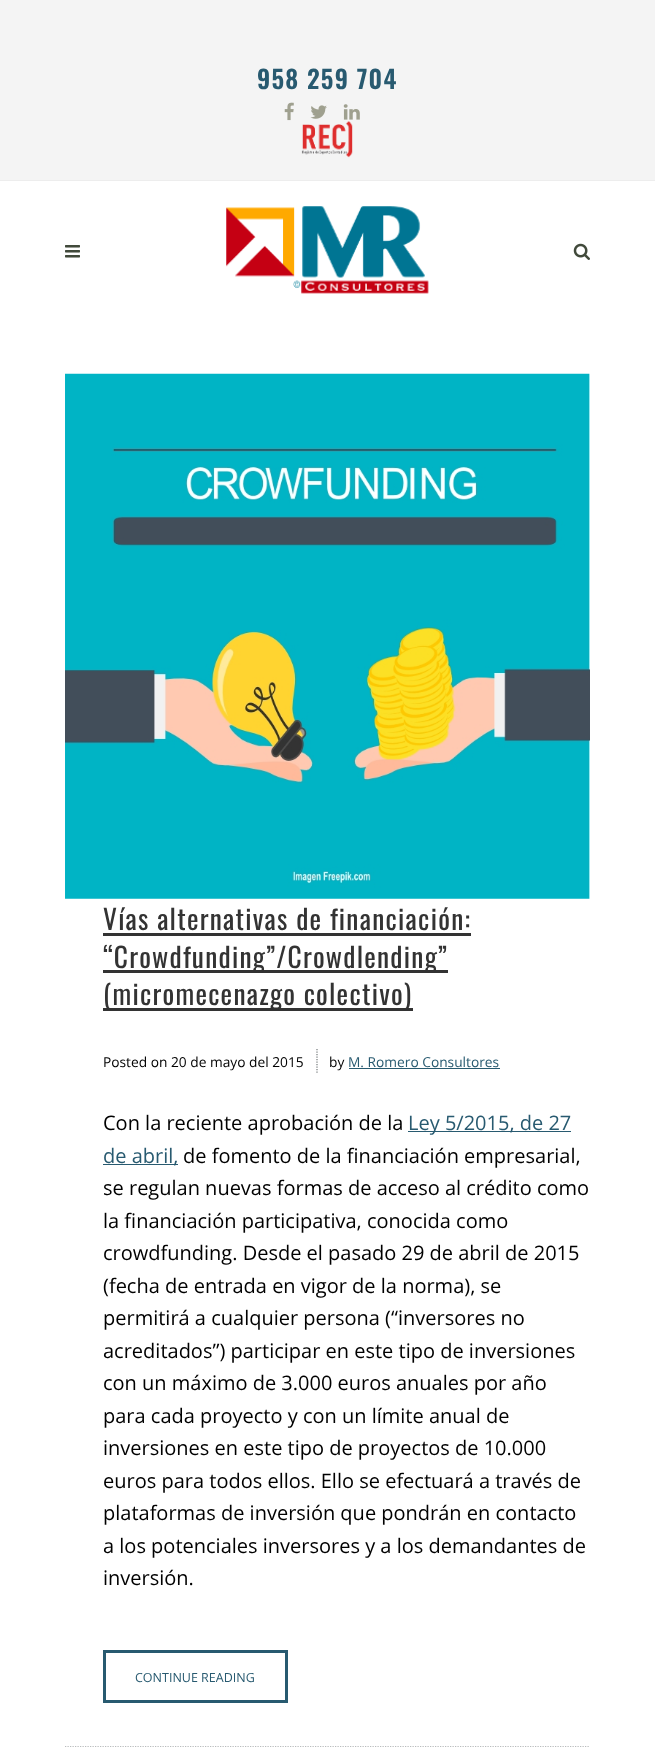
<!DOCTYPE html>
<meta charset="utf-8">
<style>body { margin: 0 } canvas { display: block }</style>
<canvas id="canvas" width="655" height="1747"></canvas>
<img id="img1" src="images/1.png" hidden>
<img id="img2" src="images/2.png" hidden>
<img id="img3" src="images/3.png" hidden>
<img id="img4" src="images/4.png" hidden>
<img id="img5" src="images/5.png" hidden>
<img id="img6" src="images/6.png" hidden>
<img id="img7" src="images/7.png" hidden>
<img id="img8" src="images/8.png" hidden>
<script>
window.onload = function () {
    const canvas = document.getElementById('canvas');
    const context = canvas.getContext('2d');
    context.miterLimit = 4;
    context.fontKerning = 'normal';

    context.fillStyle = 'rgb(255, 255, 255)';
    context.fillRect(0, 0, 655, 1747);
    context.fillStyle = 'rgb(244, 244, 244)';
    context.fillRect(0, 0, 655, 180);
    context.fillStyle = 'rgb(237, 237, 237)';
    context.fillRect(0, 180, 655, 1);
    context.drawImage(document.getElementById('img1'), 284, 102, 10, 19);
    context.drawImage(document.getElementById('img2'), 310, 105, 17, 14);
    context.drawImage(document.getElementById('img3'), 343, 104, 17, 16);
    context.drawImage(document.getElementById('img4'), 301, 121, 52, 37);
    context.drawImage(document.getElementById('img5'), 65, 245, 15, 13);
    context.drawImage(document.getElementById('img6'), 226, 206, 203, 88);
    context.drawImage(document.getElementById('img7'), 573, 243, 17, 17);
    context.beginPath();
    context.moveTo(65, 1747);
    context.lineTo(590, 1747);
    context.strokeStyle = 'rgb(116, 121, 123)';
    context.lineWidth = 1.2;
    context.setLineDash([1.25, 1.25]);
    context.stroke();
    context.drawImage(document.getElementById('img8'), 65, 373, 525, 526);
    context.fillStyle = 'rgb(51, 51, 51)';
    context.fillRect(103, 933, 368, 3);
    context.fillRect(103, 970, 345, 3);
    context.fillRect(103, 1008, 310, 3);
    context.beginPath();
    context.moveTo(317, 1049);
    context.lineTo(317, 1074);
    context.stroke();
    context.fillStyle = 'rgb(40, 90, 112)';
    context.fillRect(349, 1068, 151, 1);
    context.fillRect(408, 1131, 163, 1);
    context.fillRect(103, 1164, 75, 1);
    context.strokeStyle = 'rgb(40, 90, 112)';
    context.lineWidth = 3;
    context.setLineDash([]);
    context.strokeRect(104.5, 1651.5, 182, 50);
    context.letterSpacing = '1.25px';
    context.font = '600 25px Oswald';
    context.fillText('958 259 704', 257, 89);
    context.font = '27.5px Oswald';
    context.fillStyle = 'rgb(51, 51, 51)';
    context.fillText('Vías alternativas de financiación:', 103, 930);
    context.fillText('“Crowdfunding”/Crowdlending”', 103, 968);
    context.fillText('(micromecenazgo colectivo)', 103, 1005);
    context.letterSpacing = '0px';
    context.font = '13.75px Open Sans';
    context.fillStyle = 'rgb(0, 0, 0)';
    context.fillText('Posted on 20 de mayo del 2015', 103, 1067);
    context.fillText('by', 329, 1067);
    context.fillStyle = 'rgb(40, 90, 112)';
    context.fillText('M. Romero Consultores', 348, 1067);
    context.font = '20px Open Sans';
    context.fillStyle = 'rgb(0, 0, 0)';
    context.fillText('Con la reciente aprobación de la', 103, 1130);
    context.fillStyle = 'rgb(40, 90, 112)';
    context.fillText('Ley 5/2015, de 27', 408, 1130);
    context.fillText('de abril,', 103, 1163);
    context.fillStyle = 'rgb(0, 0, 0)';
    context.fillText('de fomento de la financiación empresarial,', 183, 1163);
    context.fillText('se regulan nuevas formas de acceso al crédito como', 103, 1195);
    context.fillText('la financiación participativa, conocida como', 103, 1228);
    context.fillText('crowdfunding. Desde el pasado 29 de abril de 2015', 103, 1260);
    context.fillText('(fecha de entrada en vigor de la norma), se', 103, 1293);
    context.fillText('permitirá a cualquier persona (“inversores no', 103, 1325);
    context.fillText('acreditados”) participar en este tipo de inversiones', 103, 1358);
    context.fillText('con un máximo de 3.000 euros anuales por año', 103, 1390);
    context.fillText('para cada proyecto y con un límite anual de', 103, 1423);
    context.fillText('inversiones en este tipo de proyectos de 10.000', 103, 1455);
    context.fillText('euros para todos ellos. Ello se efectuará a través de', 103, 1488);
    context.fillText('plataformas de inversión que pondrán en contacto', 103, 1520);
    context.fillText('a los potenciales inversores y a los demandantes de', 103, 1553);
    context.fillText('inversión.', 103, 1585);
    context.font = '12.5px Open Sans';
    context.fillStyle = 'rgb(40, 90, 112)';
    context.fillText('CONTINUE READING', 135, 1682);
};
</script>
